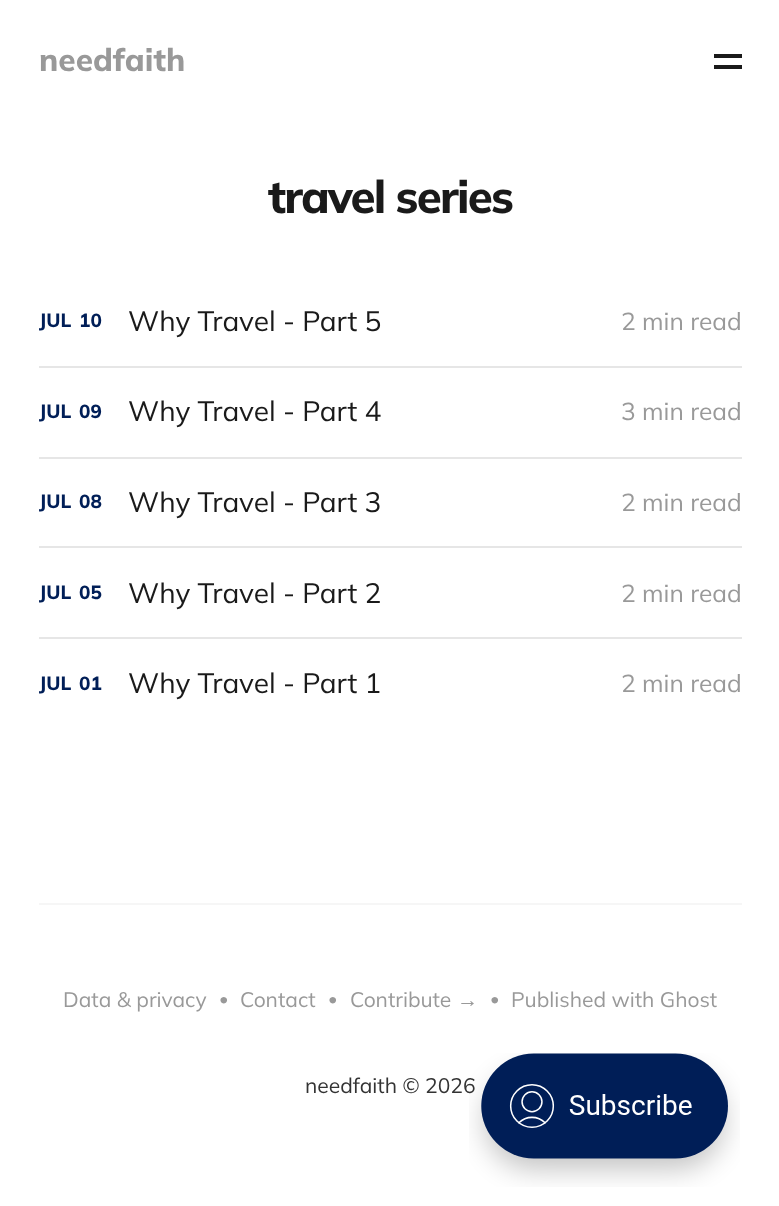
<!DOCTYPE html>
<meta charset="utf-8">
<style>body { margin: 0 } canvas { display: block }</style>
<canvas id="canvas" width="779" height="1206"></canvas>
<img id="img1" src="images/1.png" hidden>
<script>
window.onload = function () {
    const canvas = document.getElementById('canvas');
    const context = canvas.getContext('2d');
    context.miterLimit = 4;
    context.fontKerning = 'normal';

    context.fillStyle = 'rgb(255, 255, 255)';
    context.fillRect(0, 0, 779, 1206);
    context.fillStyle = 'rgb(26, 26, 26)';
    context.fillRect(714, 54, 28, 4);
    context.fillRect(714, 65, 28, 4);
    context.fillStyle = 'rgb(230, 230, 230)';
    context.fillRect(39, 366, 703, 2);
    context.fillRect(39, 457, 703, 2);
    context.fillRect(39, 546, 703, 2);
    context.fillRect(39, 637, 703, 2);
    context.fillStyle = 'rgb(246, 246, 246)';
    context.fillRect(39, 903, 703, 2);
    context.font = '800 31.5px Mulish';
    context.fillStyle = 'rgb(153, 153, 153)';
    context.fillText('needfaith', 39, 71);
    context.letterSpacing = '-1.75px';
    context.font = '800 45.5px Mulish';
    context.fillStyle = 'rgb(26, 26, 26)';
    context.fillText('travel series', 268, 213);
    context.letterSpacing = '0px';
    context.font = '800 19px Mulish';
    context.fillStyle = 'rgb(0, 30, 87)';
    context.fillText('JUL', 39, 327);
    context.fillText('10', 79, 327);
    context.font = '28px Mulish';
    context.fillStyle = 'rgb(26, 26, 26)';
    context.fillText('Why Travel - Part 5', 128, 331);
    context.font = '24.5px Mulish';
    context.fillStyle = 'rgb(153, 153, 153)';
    context.fillText('2 min read', 621, 330);
    context.font = '800 19px Mulish';
    context.fillStyle = 'rgb(0, 30, 87)';
    context.fillText('JUL', 39, 418);
    context.fillText('09', 79, 418);
    context.font = '28px Mulish';
    context.fillStyle = 'rgb(26, 26, 26)';
    context.fillText('Why Travel - Part 4', 128, 421);
    context.font = '24.5px Mulish';
    context.fillStyle = 'rgb(153, 153, 153)';
    context.fillText('3 min read', 621, 420);
    context.font = '800 19px Mulish';
    context.fillStyle = 'rgb(0, 30, 87)';
    context.fillText('JUL', 39, 508);
    context.fillText('08', 79, 508);
    context.font = '28px Mulish';
    context.fillStyle = 'rgb(26, 26, 26)';
    context.fillText('Why Travel - Part 3', 128, 512);
    context.font = '24.5px Mulish';
    context.fillStyle = 'rgb(153, 153, 153)';
    context.fillText('2 min read', 621, 511);
    context.font = '800 19px Mulish';
    context.fillStyle = 'rgb(0, 30, 87)';
    context.fillText('JUL', 39, 599);
    context.fillText('05', 79, 599);
    context.font = '28px Mulish';
    context.fillStyle = 'rgb(26, 26, 26)';
    context.fillText('Why Travel - Part 2', 128, 603);
    context.font = '24.5px Mulish';
    context.fillStyle = 'rgb(153, 153, 153)';
    context.fillText('2 min read', 621, 602);
    context.font = '800 19px Mulish';
    context.fillStyle = 'rgb(0, 30, 87)';
    context.fillText('JUL', 39, 690);
    context.fillText('01', 79, 690);
    context.font = '28px Mulish';
    context.fillStyle = 'rgb(26, 26, 26)';
    context.fillText('Why Travel - Part 1', 128, 693);
    context.font = '24.5px Mulish';
    context.fillStyle = 'rgb(153, 153, 153)';
    context.fillText('2 min read', 621, 692);
    context.font = '21px Mulish';
    context.fillText('Data & privacy', 63, 1007);
    context.font = '18px Mulish';
    context.fillText('•', 219, 1005);
    context.font = '21px Mulish';
    context.fillText('Contact', 240, 1007);
    context.font = '18px Mulish';
    context.fillText('•', 328, 1005);
    context.font = '21px Mulish';
    context.fillText('Contribute', 350, 1007);
    context.font = '21px Liberation Sans';
    context.fillText('→', 457, 1007);
    context.font = '18px Mulish';
    context.fillText('•', 490, 1005);
    context.font = '21px Mulish';
    context.fillText('Published with Ghost', 511, 1007);
    context.fillStyle = 'rgb(51, 51, 51)';
    context.fillText('needfaith © 2026', 305, 1093);
    context.drawImage(document.getElementById('img1'), 469, 1053, 271, 134);
};
</script>
